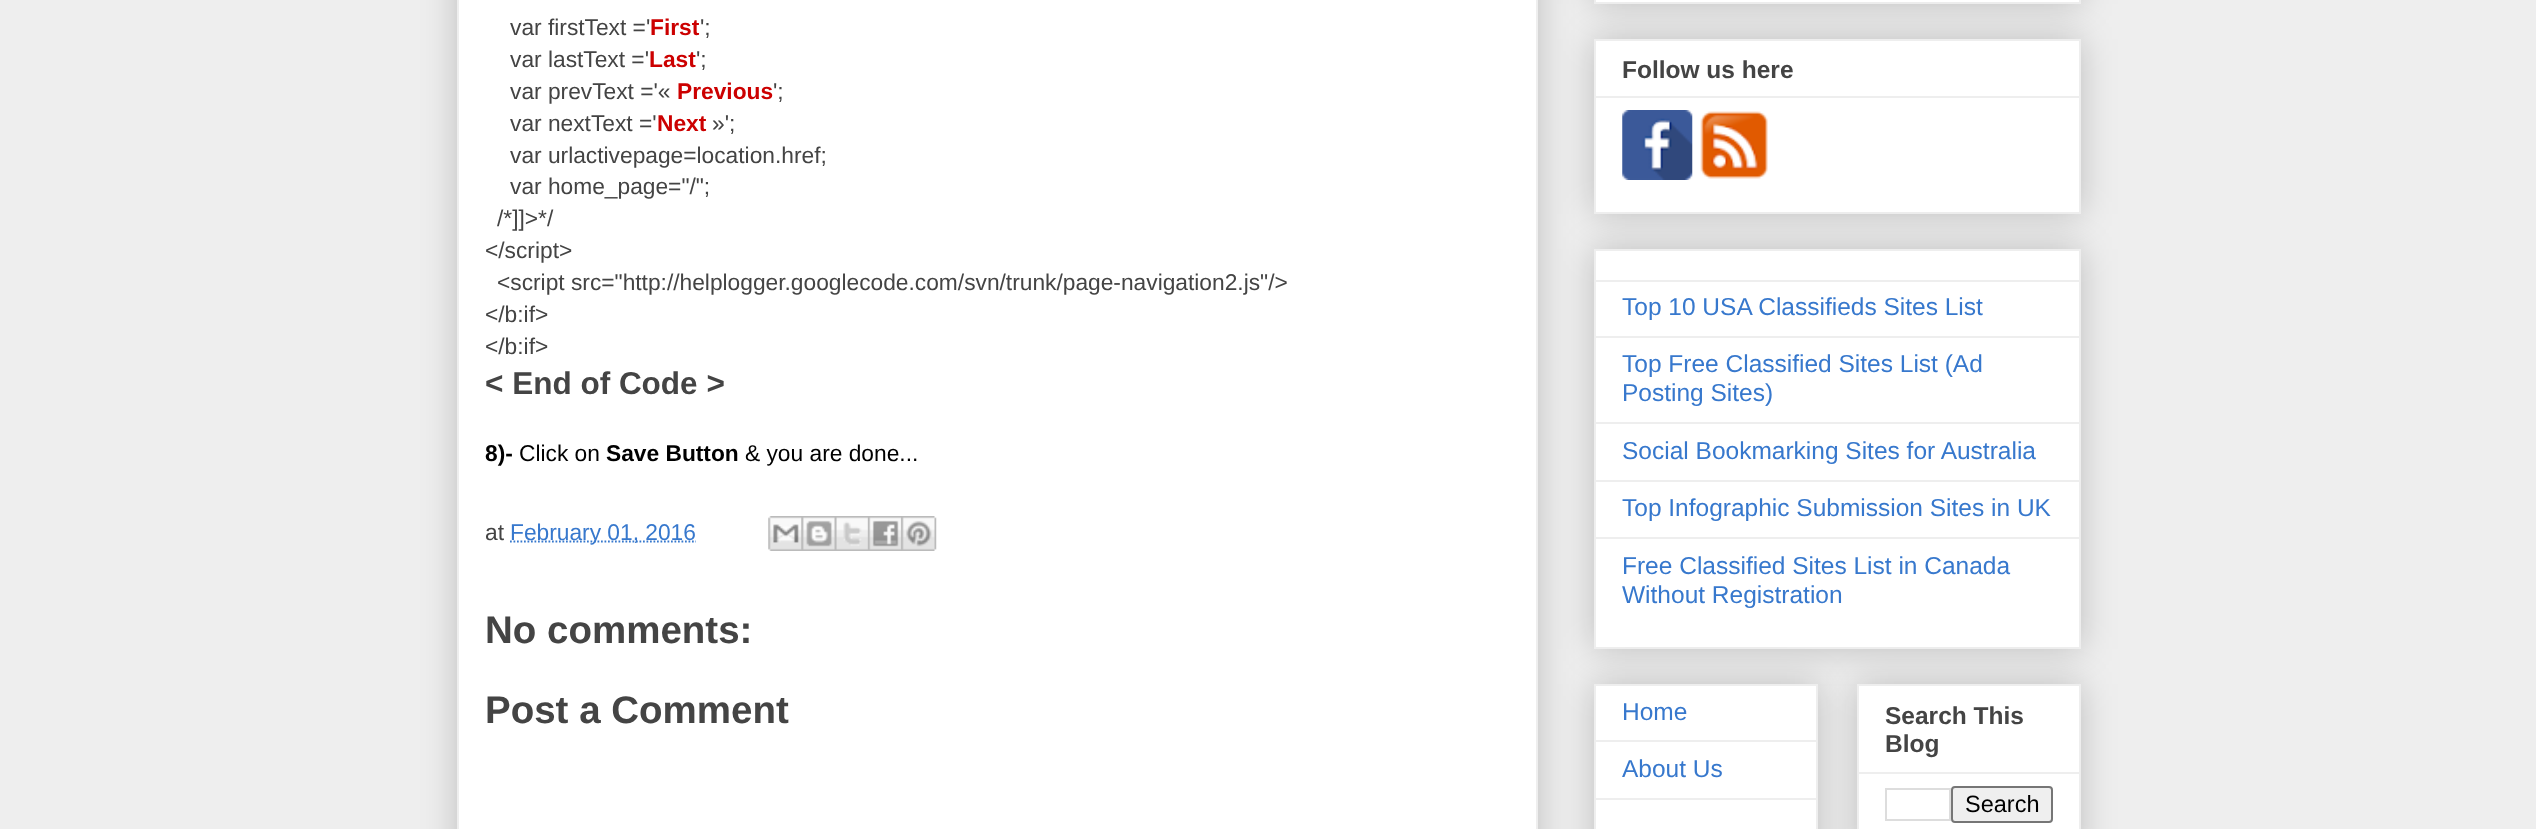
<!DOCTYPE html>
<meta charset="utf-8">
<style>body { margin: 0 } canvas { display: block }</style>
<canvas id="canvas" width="2536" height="829"></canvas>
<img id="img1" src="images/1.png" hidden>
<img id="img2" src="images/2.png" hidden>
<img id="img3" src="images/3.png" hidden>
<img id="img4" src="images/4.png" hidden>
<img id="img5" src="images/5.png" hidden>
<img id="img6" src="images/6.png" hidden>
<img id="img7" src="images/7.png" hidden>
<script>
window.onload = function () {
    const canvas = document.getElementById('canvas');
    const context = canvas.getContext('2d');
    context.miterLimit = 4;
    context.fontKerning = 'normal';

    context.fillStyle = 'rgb(238, 238, 238)';
    context.fillRect(0, 0, 2536, 829);
    context.fillStyle = 'rgba(0, 0, 0, 0.2)';
    context.filter = 'blur(17.5px)';
    context.beginPath();
    context.rect(457, -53, 1081, 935);
    context.fill();
    context.filter = 'none';
    context.fillStyle = 'rgb(255, 255, 255)';
    context.beginPath();
    context.rect(458, -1, 1079, 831);
    context.fill();
    context.strokeStyle = 'rgb(238, 238, 238)';
    context.lineWidth = 2;
    context.stroke();
    context.beginPath();
    context.moveTo(510, 541.5);
    context.lineTo(696, 541.5);
    context.strokeStyle = 'rgb(55, 120, 205)';
    context.lineWidth = 1.8;
    context.setLineDash([1.75, 1.75]);
    context.stroke();
    context.drawImage(document.getElementById('img1'), 768, 516, 34, 35);
    context.drawImage(document.getElementById('img2'), 801, 516, 34, 35);
    context.drawImage(document.getElementById('img3'), 834, 516, 34, 35);
    context.drawImage(document.getElementById('img4'), 868, 516, 34, 35);
    context.drawImage(document.getElementById('img5'), 901, 516, 36, 35);
    context.fillStyle = 'rgba(0, 0, 0, 0.2)';
    context.filter = 'blur(17.5px)';
    context.beginPath();
    context.rect(1594, -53, 487, 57);
    context.fill();
    context.filter = 'none';
    context.fillStyle = 'rgb(255, 255, 255)';
    context.beginPath();
    context.rect(1595, -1, 485, 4);
    context.fill();
    context.strokeStyle = 'rgb(238, 238, 238)';
    context.lineWidth = 2;
    context.setLineDash([]);
    context.stroke();
    context.fillStyle = 'rgba(0, 0, 0, 0.2)';
    context.filter = 'blur(17.5px)';
    context.beginPath();
    context.rect(1594, 39, 487, 175);
    context.fill();
    context.filter = 'none';
    context.fillStyle = 'rgb(255, 255, 255)';
    context.beginPath();
    context.rect(1595, 40, 485, 173);
    context.fill();
    context.stroke();
    context.fillStyle = 'rgb(238, 238, 238)';
    context.fillRect(1596, 96, 483, 2);
    context.drawImage(document.getElementById('img6'), 1622, 110, 71, 70);
    context.drawImage(document.getElementById('img7'), 1700, 111, 68, 68);
    context.fillStyle = 'rgba(0, 0, 0, 0.2)';
    context.filter = 'blur(17.5px)';
    context.beginPath();
    context.rect(1594, 249, 487, 400);
    context.fill();
    context.filter = 'none';
    context.fillStyle = 'rgb(255, 255, 255)';
    context.beginPath();
    context.rect(1595, 250, 485, 398);
    context.fill();
    context.stroke();
    context.fillStyle = 'rgb(238, 238, 238)';
    context.fillRect(1596, 280, 483, 2);
    context.fillRect(1596, 336, 483, 2);
    context.fillRect(1596, 422, 483, 2);
    context.fillRect(1596, 480, 483, 2);
    context.fillRect(1596, 537, 483, 2);
    context.fillStyle = 'rgba(0, 0, 0, 0.2)';
    context.filter = 'blur(17.5px)';
    context.beginPath();
    context.rect(1594, 684, 224, 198);
    context.fill();
    context.filter = 'none';
    context.fillStyle = 'rgb(255, 255, 255)';
    context.beginPath();
    context.rect(1595, 685, 222, 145);
    context.fill();
    context.stroke();
    context.fillStyle = 'rgb(238, 238, 238)';
    context.fillRect(1596, 740, 221, 2);
    context.fillRect(1596, 798, 221, 2);
    context.fillStyle = 'rgba(0, 0, 0, 0.2)';
    context.filter = 'blur(17.5px)';
    context.beginPath();
    context.rect(1857, 684, 224, 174);
    context.fill();
    context.filter = 'none';
    context.fillStyle = 'rgb(255, 255, 255)';
    context.beginPath();
    context.rect(1858, 685, 222, 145);
    context.fill();
    context.stroke();
    context.fillStyle = 'rgb(238, 238, 238)';
    context.fillRect(1859, 772, 220, 2);
    context.strokeStyle = 'rgb(221, 221, 221)';
    context.strokeRect(1886, 789, 64, 31);
    context.fillStyle = 'rgb(239, 239, 239)';
    context.beginPath();
    context.roundRect(1952, 787, 100, 35, 3);
    context.fill();
    context.strokeStyle = 'rgb(118, 118, 118)';
    context.stroke();
    context.font = '22.75px Liberation Sans';
    context.fillStyle = 'rgb(68, 68, 68)';
    context.fillText('var firstText =\'', 510, 35);
    context.font = 'bold 22.75px Liberation Sans';
    context.fillStyle = 'rgb(204, 0, 0)';
    context.fillText('First', 650, 35);
    context.font = '22.75px Liberation Sans';
    context.fillStyle = 'rgb(68, 68, 68)';
    context.fillText('\';', 700, 35);
    context.fillText('var lastText =\'', 510, 67);
    context.font = 'bold 22.75px Liberation Sans';
    context.fillStyle = 'rgb(204, 0, 0)';
    context.fillText('Last', 649, 67);
    context.font = '22.75px Liberation Sans';
    context.fillStyle = 'rgb(68, 68, 68)';
    context.fillText('\';', 696, 67);
    context.fillText('var prevText =\'«', 510, 99);
    context.font = 'bold 22.75px Liberation Sans';
    context.fillStyle = 'rgb(204, 0, 0)';
    context.fillText('Previous', 677, 99);
    context.font = '22.75px Liberation Sans';
    context.fillStyle = 'rgb(68, 68, 68)';
    context.fillText('\';', 773, 99);
    context.fillText('var nextText =\'', 510, 131);
    context.font = 'bold 22.75px Liberation Sans';
    context.fillStyle = 'rgb(204, 0, 0)';
    context.fillText('Next', 657, 131);
    context.font = '22.75px Liberation Sans';
    context.fillStyle = 'rgb(68, 68, 68)';
    context.fillText('»\';', 712, 131);
    context.fillText('var urlactivepage=location.href;', 510, 163);
    context.fillText('var home_page="/";', 510, 194);
    context.fillText('/*]]>*/', 497, 226);
    context.fillText('<\/script>', 485, 258);
    context.fillText('<script src="http://helplogger.googlecode.com/svn/trunk/page-navigation2.js"/>', 497, 290);
    context.fillText('<\/b:if>', 485, 322);
    context.fillText('<\/b:if>', 485, 354);
    context.font = 'bold 31.5px Liberation Sans';
    context.fillText('< End of Code >', 485, 394);
    context.font = 'bold 22.75px Liberation Sans';
    context.fillStyle = 'rgb(0, 0, 0)';
    context.fillText('8)-', 485, 461);
    context.font = '22.75px Liberation Sans';
    context.fillText('Click on', 519, 461);
    context.font = 'bold 22.75px Liberation Sans';
    context.fillText('Save Button', 606, 461);
    context.font = '22.75px Liberation Sans';
    context.fillText('& you are done...', 745, 461);
    context.fillStyle = 'rgb(68, 68, 68)';
    context.fillText('at', 485, 540);
    context.fillStyle = 'rgb(55, 120, 205)';
    context.fillText('February 01, 2016', 510, 540);
    context.font = 'bold 38.5px Liberation Sans';
    context.fillStyle = 'rgb(68, 68, 68)';
    context.fillText('No comments:', 485, 643);
    context.fillText('Post a Comment', 485, 723);
    context.font = 'bold 24.5px Liberation Sans';
    context.fillText('Follow us here', 1622, 78);
    context.font = '24.5px Liberation Sans';
    context.fillStyle = 'rgb(55, 120, 205)';
    context.fillText('Top 10 USA Classifieds Sites List', 1622, 315);
    context.fillText('Top Free Classified Sites List (Ad', 1622, 372);
    context.fillText('Posting Sites)', 1622, 401);
    context.fillText('Social Bookmarking Sites for Australia', 1622, 459);
    context.fillText('Top Infographic Submission Sites in UK', 1622, 516);
    context.fillText('Free Classified Sites List in Canada', 1622, 574);
    context.fillText('Without Registration', 1622, 603);
    context.fillText('Home', 1622, 720);
    context.fillText('About Us', 1622, 777);
    context.font = 'bold 24.5px Liberation Sans';
    context.fillStyle = 'rgb(68, 68, 68)';
    context.fillText('Search This', 1885, 724);
    context.fillText('Blog', 1885, 752);
    context.font = '23.5px Liberation Sans';
    context.fillStyle = 'rgb(0, 0, 0)';
    context.fillText('Search', 1965, 812);
};
</script>
